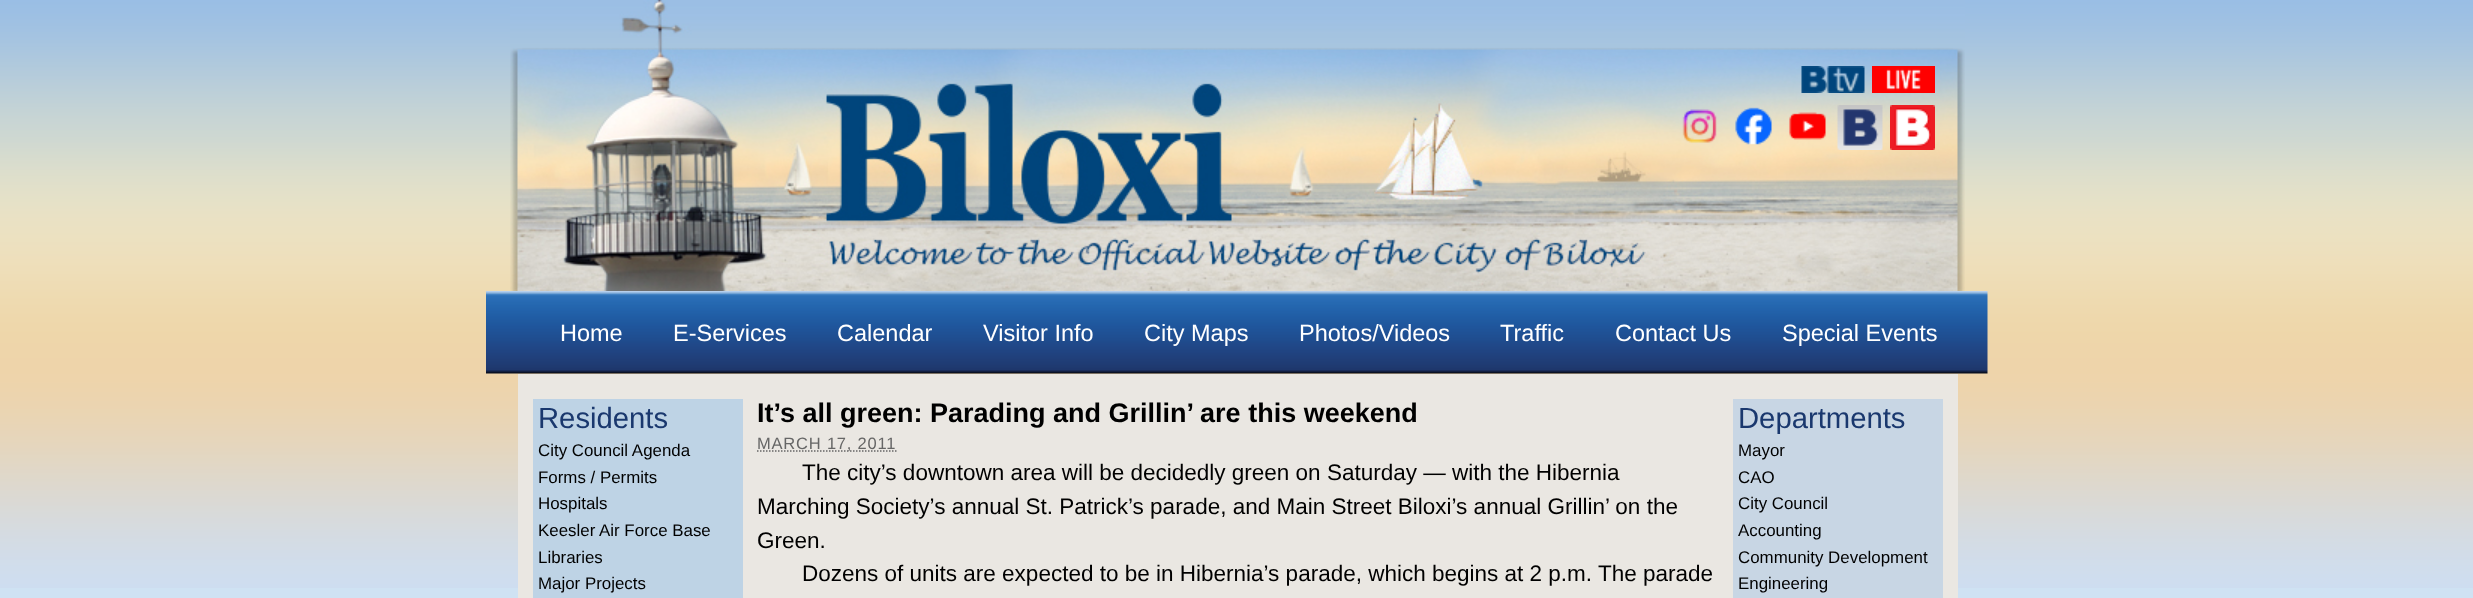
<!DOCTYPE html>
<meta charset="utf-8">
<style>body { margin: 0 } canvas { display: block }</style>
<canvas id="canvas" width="2473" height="598"></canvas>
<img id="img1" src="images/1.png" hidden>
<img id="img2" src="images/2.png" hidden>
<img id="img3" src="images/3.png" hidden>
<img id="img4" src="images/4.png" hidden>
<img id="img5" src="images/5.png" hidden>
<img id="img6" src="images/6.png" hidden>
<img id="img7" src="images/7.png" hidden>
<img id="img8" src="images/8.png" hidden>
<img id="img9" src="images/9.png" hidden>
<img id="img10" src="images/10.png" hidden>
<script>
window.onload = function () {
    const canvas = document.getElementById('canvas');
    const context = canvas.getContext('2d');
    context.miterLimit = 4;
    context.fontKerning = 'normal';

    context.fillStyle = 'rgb(207, 226, 243)';
    context.fillRect(0, 0, 2473, 598);
    context.drawImage(document.getElementById('img1'), 0, 0, 2473, 588);
    context.drawImage(document.getElementById('img2'), 510, 0, 1455, 291);
    context.drawImage(document.getElementById('img3'), 1801, 66, 64, 27);
    context.drawImage(document.getElementById('img4'), 1872, 66, 63, 27);
    context.drawImage(document.getElementById('img5'), 1682, 109, 35, 34);
    context.drawImage(document.getElementById('img6'), 1735, 107, 37, 38);
    context.drawImage(document.getElementById('img7'), 1789, 112, 37, 28);
    context.drawImage(document.getElementById('img8'), 1837, 105, 46, 45);
    context.drawImage(document.getElementById('img9'), 1890, 105, 45, 45);
    context.drawImage(document.getElementById('img10'), 486, 291, 1502, 83);
    context.fillStyle = 'rgb(234, 231, 226)';
    context.fillRect(518, 374, 1440, 224);
    context.fillStyle = 'rgb(190, 211, 229)';
    context.fillRect(533, 399, 210, 199);
    context.beginPath();
    context.moveTo(757, 451);
    context.lineTo(896.5, 451);
    context.strokeStyle = 'rgb(102, 102, 102)';
    context.lineWidth = 1.5;
    context.setLineDash([1.5, 1.5]);
    context.stroke();
    context.fillStyle = 'rgb(200, 214, 228)';
    context.fillRect(1733, 399, 210, 199);
    context.font = '23.5px Liberation Sans';
    context.fillStyle = 'rgb(255, 255, 255)';
    context.fillText('Home', 560, 341);
    context.fillText('E-Services', 673, 341);
    context.fillText('Calendar', 837, 341);
    context.fillText('Visitor Info', 983, 341);
    context.fillText('City Maps', 1144, 341);
    context.fillText('Photos/Videos', 1299, 341);
    context.fillText('Traffic', 1500, 341);
    context.fillText('Contact Us', 1615, 341);
    context.fillText('Special Events', 1782, 341);
    context.font = '29.25px Liberation Sans';
    context.fillStyle = 'rgb(26, 56, 110)';
    context.fillText('Residents', 538, 428);
    context.font = '16.9px Liberation Sans';
    context.fillStyle = 'rgb(0, 0, 0)';
    context.fillText('City Council Agenda', 538, 456);
    context.fillText('Forms / Permits', 538, 483);
    context.fillText('Hospitals', 538, 509);
    context.fillText('Keesler Air Force Base', 538, 536);
    context.fillText('Libraries', 538, 563);
    context.fillText('Major Projects', 538, 589);
    context.font = 'bold 27px Liberation Sans';
    context.fillText('It’s all green: Parading and Grillin’ are this weekend', 757, 422);
    context.letterSpacing = '0.8px';
    context.font = '16.5px Liberation Sans';
    context.fillStyle = 'rgb(102, 102, 102)';
    context.fillText('MARCH 17, 2011', 757, 449);
    context.letterSpacing = '0px';
    context.font = '22.5px Liberation Sans';
    context.fillStyle = 'rgb(0, 0, 0)';
    context.fillText('The city’s downtown area will be decidedly green on Saturday — with the Hibernia', 802, 480);
    context.fillText('Marching Society’s annual St. Patrick’s parade, and Main Street Biloxi’s annual Grillin’ on the', 757, 514);
    context.fillText('Green.', 757, 548);
    context.fillText('Dozens of units are expected to be in Hibernia’s parade, which begins at 2 p.m. The parade', 802, 581);
    context.font = '29.25px Liberation Sans';
    context.fillStyle = 'rgb(26, 56, 110)';
    context.fillText('Departments', 1738, 428);
    context.font = '16.9px Liberation Sans';
    context.fillStyle = 'rgb(0, 0, 0)';
    context.fillText('Mayor', 1738, 456);
    context.fillText('CAO', 1738, 483);
    context.fillText('City Council', 1738, 509);
    context.fillText('Accounting', 1738, 536);
    context.fillText('Community Development', 1738, 563);
    context.fillText('Engineering', 1738, 589);
};
</script>
